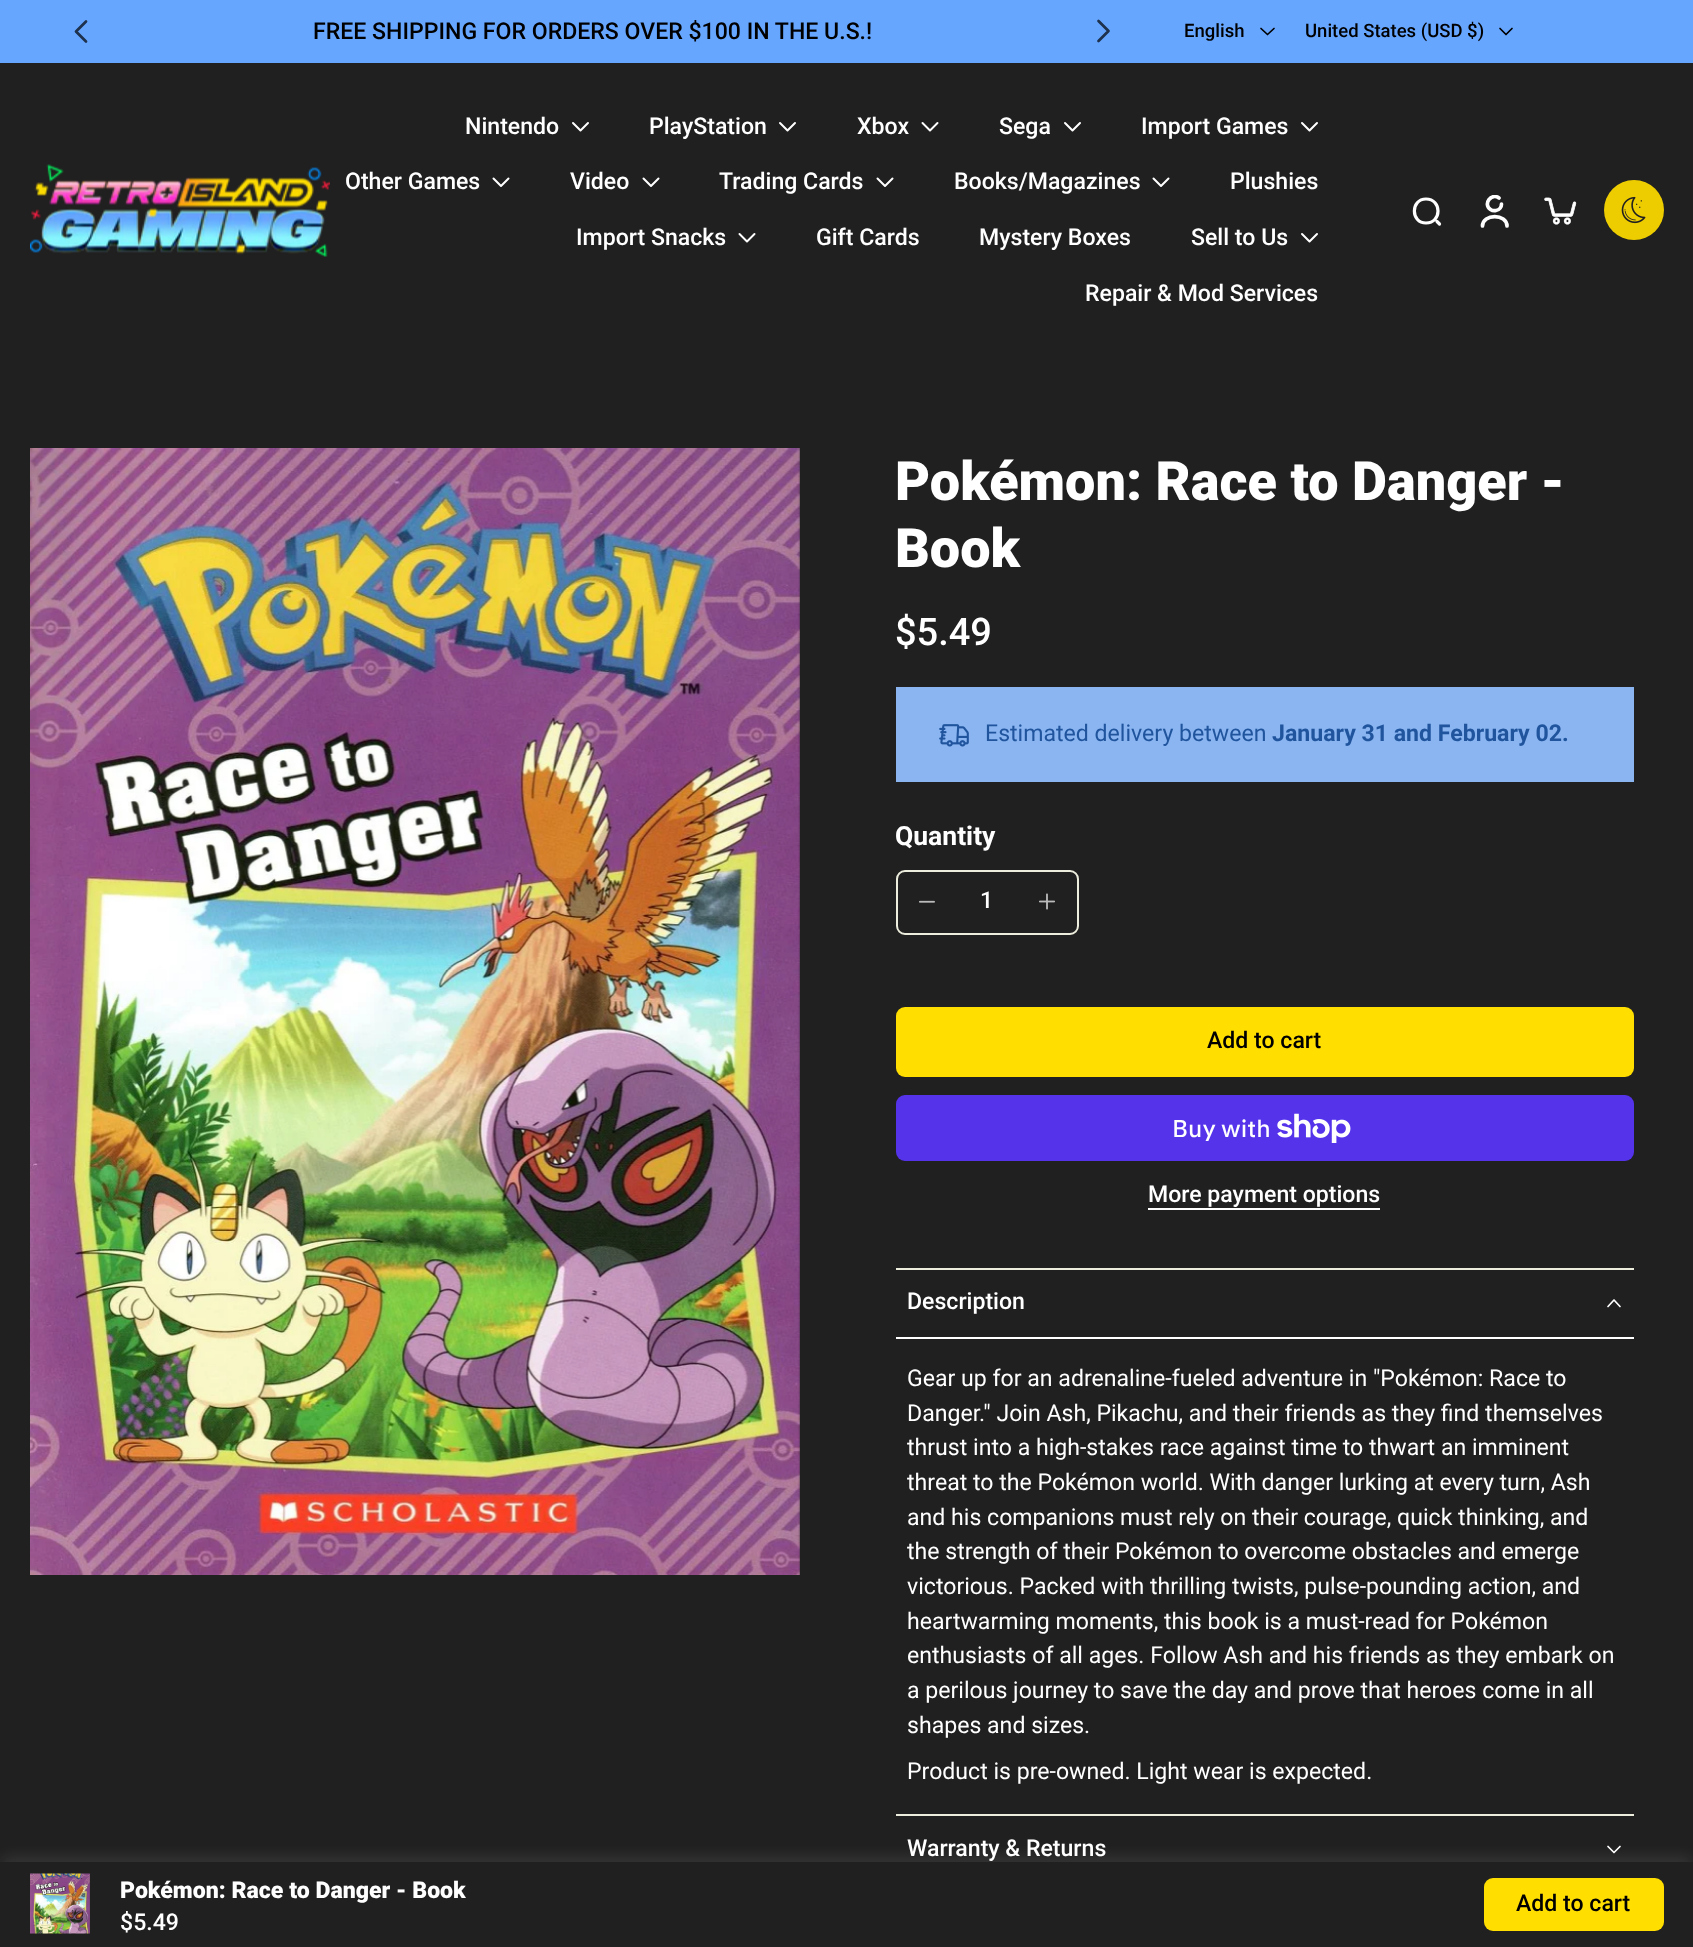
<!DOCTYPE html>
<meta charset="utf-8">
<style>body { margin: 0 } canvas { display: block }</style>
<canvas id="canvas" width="1693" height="1947"></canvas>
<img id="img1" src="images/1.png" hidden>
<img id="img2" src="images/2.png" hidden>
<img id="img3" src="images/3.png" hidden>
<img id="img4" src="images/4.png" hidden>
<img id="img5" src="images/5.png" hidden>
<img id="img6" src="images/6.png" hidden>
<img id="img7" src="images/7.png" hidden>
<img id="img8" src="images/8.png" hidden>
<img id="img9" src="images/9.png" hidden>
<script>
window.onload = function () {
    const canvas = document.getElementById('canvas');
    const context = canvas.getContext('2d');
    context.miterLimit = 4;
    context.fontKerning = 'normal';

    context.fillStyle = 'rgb(33, 32, 32)';
    context.fillRect(0, 0, 1693, 1947);
    context.fillStyle = 'rgb(102, 166, 255)';
    context.fillRect(0, 0, 1693, 63);
    context.beginPath();
    context.moveTo(86, 21.5);
    context.lineTo(76, 31.5);
    context.lineTo(86, 41.5);
    context.strokeStyle = 'rgb(31, 50, 77)';
    context.lineWidth = 2.7;
    context.lineCap = 'round';
    context.lineJoin = 'round';
    context.stroke();
    context.beginPath();
    context.moveTo(1098.5, 41);
    context.lineTo(1108.5, 31);
    context.lineTo(1098.5, 21);
    context.stroke();
    context.beginPath();
    context.moveTo(1261, 28.5);
    context.lineTo(1267.5, 34.5);
    context.lineTo(1274, 28.5);
    context.strokeStyle = 'rgb(0, 0, 0)';
    context.lineWidth = 1.7;
    context.stroke();
    context.beginPath();
    context.moveTo(1500, 28.5);
    context.lineTo(1506, 34.5);
    context.lineTo(1512, 28.5);
    context.stroke();
    context.drawImage(document.getElementById('img1'), 30, 164, 300, 93);
    context.beginPath();
    context.moveTo(573, 123);
    context.lineTo(580.5, 130.5);
    context.lineTo(588, 123);
    context.strokeStyle = 'rgb(255, 255, 255)';
    context.lineWidth = 2;
    context.stroke();
    context.beginPath();
    context.moveTo(780, 123);
    context.lineTo(787.5, 130.5);
    context.lineTo(795, 123);
    context.stroke();
    context.beginPath();
    context.moveTo(922.5, 123);
    context.lineTo(930, 130.5);
    context.lineTo(937.5, 123);
    context.stroke();
    context.beginPath();
    context.moveTo(1065, 123);
    context.lineTo(1072.5, 130.5);
    context.lineTo(1080, 123);
    context.stroke();
    context.beginPath();
    context.moveTo(1302, 123);
    context.lineTo(1309.5, 130.5);
    context.lineTo(1317, 123);
    context.stroke();
    context.beginPath();
    context.moveTo(493.5, 178.5);
    context.lineTo(501, 186);
    context.lineTo(508.5, 178.5);
    context.stroke();
    context.beginPath();
    context.moveTo(643.5, 178.5);
    context.lineTo(651, 186);
    context.lineTo(658.5, 178.5);
    context.stroke();
    context.beginPath();
    context.moveTo(877.5, 178.5);
    context.lineTo(885, 186);
    context.lineTo(892.5, 178.5);
    context.stroke();
    context.beginPath();
    context.moveTo(1153.5, 178.5);
    context.lineTo(1161, 186);
    context.lineTo(1168.5, 178.5);
    context.stroke();
    context.beginPath();
    context.moveTo(739.5, 234);
    context.lineTo(747, 241.5);
    context.lineTo(754.5, 234);
    context.stroke();
    context.beginPath();
    context.moveTo(1302, 234);
    context.lineTo(1309.5, 241.5);
    context.lineTo(1317, 234);
    context.stroke();
    context.beginPath();
    context.moveTo(1426, 223);
    context.bezierCurveTo(1442, 223, 1442, 199, 1426, 199);
    context.bezierCurveTo(1410.5, 199, 1410.5, 223, 1426, 223);
    context.closePath();
    context.moveTo(1439.5, 224);
    context.lineTo(1437, 221.5);
    context.lineWidth = 3.2;
    context.stroke();
    context.save();
    context.beginPath();
    context.rect(1478, 195, 33, 33);
    context.clip();
    context.beginPath();
    context.moveTo(1499, 198);
    context.bezierCurveTo(1491.5, 192.5, 1482.5, 204, 1490.5, 209.5);
    context.bezierCurveTo(1492, 210.5, 1494, 211, 1496, 210.5);
    context.bezierCurveTo(1499.5, 210, 1501.5, 207, 1501.5, 204);
    context.lineWidth = 3.7;
    context.stroke();
    context.restore();
    context.beginPath();
    context.moveTo(1507, 226);
    context.bezierCurveTo(1507, 213.5, 1482.5, 213.5, 1482.5, 226);
    context.lineWidth = 3.7;
    context.stroke();
    context.drawImage(document.getElementById('img2'), 1544, 197, 33, 28);
    context.fillStyle = 'rgb(237, 205, 0)';
    context.beginPath();
    context.arc(1634, 210, 30, 0, 2 * Math.PI);
    context.fill();
    context.drawImage(document.getElementById('img3'), 1621, 196, 25, 28);
    context.drawImage(document.getElementById('img4'), 30, 448, 770, 1127);
    context.fillStyle = 'rgb(138, 181, 241)';
    context.fillRect(896, 687, 738, 95);
    context.drawImage(document.getElementById('img5'), 939, 724, 30, 23);
    context.beginPath();
    context.roundRect(897, 871, 181, 63, 8);
    context.strokeStyle = 'rgb(237, 237, 221)';
    context.lineWidth = 2;
    context.lineJoin = 'miter';
    context.stroke();
    context.drawImage(document.getElementById('img6'), 919, 900, 16, 3);
    context.drawImage(document.getElementById('img7'), 1039, 893, 16, 17);
    context.fillStyle = 'rgb(255, 222, 0)';
    context.beginPath();
    context.roundRect(896, 1007, 738, 70, 9);
    context.fill();
    context.fillStyle = 'rgb(84, 51, 235)';
    context.beginPath();
    context.roundRect(896, 1095, 738, 66, 9);
    context.fill();
    context.drawImage(document.getElementById('img8'), 1277, 1113, 74, 30);
    context.fillStyle = 'rgb(255, 255, 255)';
    context.fillRect(1148, 1208, 232, 2);
    context.fillStyle = 'rgb(237, 237, 221)';
    context.fillRect(896, 1268, 738, 2);
    context.fillRect(896, 1814, 738, 2);
    context.beginPath();
    context.moveTo(1620, 1306.5);
    context.lineTo(1614, 1300);
    context.lineTo(1608, 1306.5);
    context.strokeStyle = 'rgb(255, 255, 255)';
    context.lineWidth = 1.7;
    context.lineJoin = 'round';
    context.stroke();
    context.fillStyle = 'rgb(255, 255, 255)';
    context.fillRect(896, 1337, 738, 2);
    context.beginPath();
    context.moveTo(1608, 1846.5);
    context.lineTo(1614, 1852.5);
    context.lineTo(1620, 1846.5);
    context.stroke();
    context.fillStyle = 'rgba(255, 255, 255, 0.1)';
    context.filter = 'blur(7.5px)';
    context.beginPath();
    context.rect(2, 1857, 1690, 83);
    context.fill();
    context.filter = 'none';
    context.fillStyle = 'rgb(33, 32, 32)';
    context.fillRect(0, 1862, 1693, 85);
    context.drawImage(document.getElementById('img9'), 30, 1873, 60, 61);
    context.fillStyle = 'rgb(255, 222, 0)';
    context.beginPath();
    context.roundRect(1484, 1878, 180, 53, 9);
    context.fill();
    context.font = '500 23.1px Roboto';
    context.fillStyle = 'rgb(0, 0, 0)';
    context.fillText('FREE SHIPPING FOR ORDERS OVER $100 IN THE U.S.!', 313, 39);
    context.font = '500 18.5px Roboto';
    context.fillText('English', 1184, 37);
    context.fillText('United States (USD $)', 1305, 37);
    context.font = '500 23.1px Roboto';
    context.fillStyle = 'rgb(255, 255, 255)';
    context.fillText('Nintendo', 465, 134);
    context.fillText('PlayStation', 649, 134);
    context.fillText('Xbox', 857, 134);
    context.fillText('Sega', 999, 134);
    context.fillText('Import Games', 1141, 134);
    context.fillText('Other Games', 345, 189);
    context.fillText('Video', 570, 189);
    context.fillText('Trading Cards', 719, 189);
    context.fillText('Books/Magazines', 954, 189);
    context.fillText('Plushies', 1230, 189);
    context.fillText('Import Snacks', 576, 245);
    context.fillText('Gift Cards', 816, 245);
    context.fillText('Mystery Boxes', 979, 245);
    context.fillText('Sell to Us', 1191, 245);
    context.fillText('Repair & Mod Services', 1085, 301);
    context.font = '900 54px Roboto';
    context.fillText('Pokémon: Race to Danger -', 895, 500);
    context.fillText('Book', 895, 567);
    context.font = '500 38px Roboto';
    context.fillText('$5.49', 895, 645);
    context.font = '23.1px Roboto';
    context.fillStyle = 'rgb(32, 85, 158)';
    context.fillText('Estimated delivery between', 985, 741);
    context.font = 'bold 23.1px Roboto';
    context.fillText('January 31 and February 02.', 1272, 741);
    context.font = 'bold 26.5px Roboto';
    context.fillStyle = 'rgb(255, 255, 255)';
    context.fillText('Quantity', 895, 845);
    context.font = '500 23.1px Roboto';
    context.fillText('1', 980, 908);
    context.fillStyle = 'rgb(0, 0, 0)';
    context.fillText('Add to cart', 1207, 1048);
    context.font = '500 24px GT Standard';
    context.fillStyle = 'rgb(255, 255, 255)';
    context.fillText('Buy with', 1172, 1137);
    context.font = '500 23.1px Roboto';
    context.fillText('More payment options', 1148, 1202);
    context.fillText('Description', 907, 1309);
    context.font = '23.1px Roboto';
    context.fillText('Gear up for an adrenaline-fueled adventure in "Pokémon: Race to', 907, 1386);
    context.fillText('Danger." Join Ash, Pikachu, and their friends as they find themselves', 907, 1421);
    context.fillText('thrust into a high-stakes race against time to thwart an imminent', 907, 1455);
    context.fillText('threat to the Pokémon world. With danger lurking at every turn, Ash', 907, 1490);
    context.fillText('and his companions must rely on their courage, quick thinking, and', 907, 1525);
    context.fillText('the strength of their Pokémon to overcome obstacles and emerge', 907, 1559);
    context.fillText('victorious. Packed with thrilling twists, pulse-pounding action, and', 907, 1594);
    context.fillText('heartwarming moments, this book is a must-read for Pokémon', 907, 1629);
    context.fillText('enthusiasts of all ages. Follow Ash and his friends as they embark on', 907, 1663);
    context.fillText('a perilous journey to save the day and prove that heroes come in all', 907, 1698);
    context.fillText('shapes and sizes.', 907, 1733);
    context.fillText('Product is pre-owned. Light wear is expected.', 907, 1779);
    context.font = '500 23.1px Roboto';
    context.fillText('Warranty & Returns', 907, 1856);
    context.font = '900 23.1px Roboto';
    context.fillText('Pokémon: Race to Danger - Book', 120, 1898);
    context.font = '500 23.1px Roboto';
    context.fillText('$5.49', 120, 1930);
    context.fillStyle = 'rgb(0, 0, 0)';
    context.fillText('Add to cart', 1516, 1911);
};
</script>
